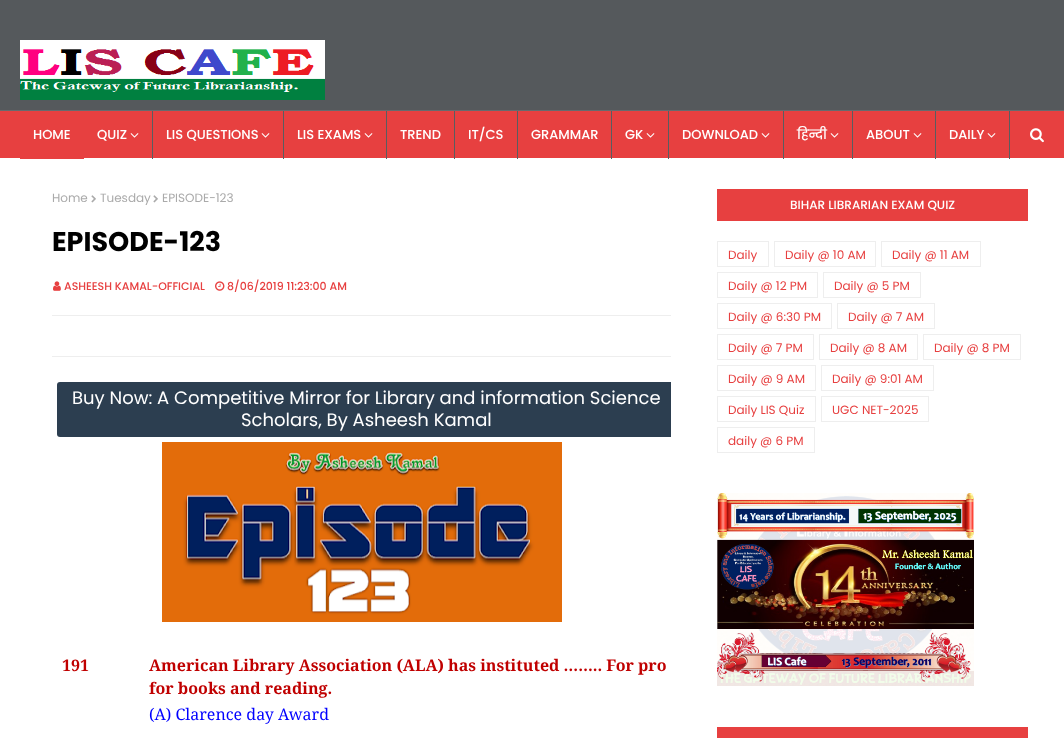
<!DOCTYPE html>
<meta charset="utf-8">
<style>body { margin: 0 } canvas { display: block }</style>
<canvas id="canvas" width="1064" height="738"></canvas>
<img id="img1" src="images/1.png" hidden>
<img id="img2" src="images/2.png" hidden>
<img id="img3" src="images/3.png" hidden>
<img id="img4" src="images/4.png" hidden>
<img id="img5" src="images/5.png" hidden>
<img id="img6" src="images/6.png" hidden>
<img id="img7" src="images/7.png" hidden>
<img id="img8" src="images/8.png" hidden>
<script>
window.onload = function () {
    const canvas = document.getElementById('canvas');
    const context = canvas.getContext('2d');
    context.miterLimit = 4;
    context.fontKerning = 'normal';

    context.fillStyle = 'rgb(255, 255, 255)';
    context.fillRect(0, 0, 1064, 738);
    context.fillStyle = 'rgb(85, 89, 92)';
    context.fillRect(0, 0, 1064, 110);
    context.drawImage(document.getElementById('img1'), 20, 40, 305, 60);
    context.fillStyle = 'rgb(231, 64, 64)';
    context.fillRect(0, 111, 1064, 47);
    context.fillStyle = 'rgb(102, 107, 110)';
    context.fillRect(0, 110, 1064, 1);
    context.fillStyle = 'rgb(231, 64, 64)';
    context.fillRect(20, 158, 64, 1);
    context.fillStyle = 'rgb(89, 93, 96)';
    context.fillRect(152, 111, 1, 48);
    context.drawImage(document.getElementById('img2'), 130, 133, 9, 5);
    context.fillRect(283, 111, 1, 48);
    context.drawImage(document.getElementById('img2'), 261, 133, 9, 5);
    context.fillRect(386, 111, 1, 48);
    context.drawImage(document.getElementById('img2'), 364, 133, 9, 5);
    context.fillRect(454, 111, 1, 48);
    context.fillRect(517, 111, 1, 48);
    context.fillRect(611, 111, 1, 48);
    context.fillRect(668, 111, 1, 48);
    context.drawImage(document.getElementById('img2'), 646, 133, 9, 5);
    context.fillRect(783, 111, 1, 48);
    context.drawImage(document.getElementById('img2'), 761, 133, 9, 5);
    context.fillRect(852, 111, 1, 48);
    context.drawImage(document.getElementById('img2'), 830, 133, 9, 5);
    context.fillRect(935, 111, 1, 48);
    context.drawImage(document.getElementById('img2'), 913, 133, 9, 5);
    context.fillRect(1009, 111, 1, 48);
    context.drawImage(document.getElementById('img2'), 987, 133, 9, 5);
    context.drawImage(document.getElementById('img3'), 1030, 128, 14, 15);
    context.drawImage(document.getElementById('img4'), 91, 195, 5, 8);
    context.drawImage(document.getElementById('img4'), 153, 195, 5, 8);
    context.drawImage(document.getElementById('img5'), 53, 281, 8, 10);
    context.drawImage(document.getElementById('img6'), 215, 281, 10, 10);
    context.fillStyle = 'rgb(238, 238, 238)';
    context.fillRect(52, 315, 619, 1);
    context.fillRect(52, 356, 619, 1);
    context.fillStyle = 'rgb(44, 62, 80)';
    context.beginPath();
    context.roundRect(57, 382, 614, 55, [3, 0, 0, 3]);
    context.fill();
    context.drawImage(document.getElementById('img7'), 162, 442, 400, 180);
    context.fillStyle = 'rgb(231, 64, 64)';
    context.fillRect(717, 189, 311, 32);
    context.strokeStyle = 'rgb(238, 238, 238)';
    context.strokeRect(717.5, 241.5, 51, 25);
    context.strokeRect(774.5, 241.5, 101, 25);
    context.strokeRect(881.5, 241.5, 99, 25);
    context.strokeRect(717.5, 272.5, 100, 25);
    context.strokeRect(823.5, 272.5, 97, 25);
    context.strokeRect(717.5, 303.5, 114, 25);
    context.strokeRect(837.5, 303.5, 97, 25);
    context.strokeRect(717.5, 334.5, 96, 25);
    context.strokeRect(819.5, 334.5, 98, 25);
    context.strokeRect(923.5, 334.5, 97, 25);
    context.strokeRect(717.5, 365.5, 98, 25);
    context.strokeRect(821.5, 365.5, 112, 25);
    context.strokeRect(717.5, 396.5, 98, 25);
    context.strokeRect(821.5, 396.5, 107, 25);
    context.strokeRect(717.5, 427.5, 97, 25);
    context.drawImage(document.getElementById('img8'), 717, 493, 257, 193);
    context.fillRect(717, 727, 311, 11);
    context.font = '500 13px Poppins';
    context.fillStyle = 'rgb(255, 255, 255)';
    context.fillText('HOME', 33, 139);
    context.fillText('QUIZ', 97, 139);
    context.fillText('LIS QUESTIONS', 166, 139);
    context.fillText('LIS EXAMS', 297, 139);
    context.fillText('TREND', 400, 139);
    context.fillText('IT/CS', 468, 139);
    context.fillText('GRAMMAR', 531, 139);
    context.fillText('GK', 625, 139);
    context.fillText('DOWNLOAD', 682, 139);
    context.fillText('हिन्दी', 797, 139);
    context.fillText('ABOUT', 866, 139);
    context.fillText('DAILY', 949, 139);
    context.font = '12px Poppins';
    context.fillStyle = 'rgb(170, 170, 170)';
    context.fillText('Home', 52, 202);
    context.fillText('Tuesday', 100, 202);
    context.fillText('EPISODE-123', 162, 202);
    context.font = 'bold 27px Poppins';
    context.fillStyle = 'rgb(0, 0, 0)';
    context.fillText('EPISODE-123', 52, 251);
    context.font = '500 11px Poppins';
    context.fillStyle = 'rgb(231, 64, 64)';
    context.fillText('ASHEESH KAMAL-OFFICIAL', 64, 290);
    context.fillText('8/06/2019 11:23:00 AM', 227, 290);
    context.font = '18px Poppins';
    context.fillStyle = 'rgb(255, 255, 255)';
    context.fillText('Buy Now: A Competitive Mirror for Library and information Science', 72, 404);
    context.fillText('Scholars, By Asheesh Kamal', 241, 426);
    context.font = 'bold 16px Noto Serif';
    context.fillStyle = 'rgb(192, 0, 0)';
    context.fillText('191', 62, 671);
    context.fillText('American Library Association (ALA) has instituted …….. For pro', 149, 671);
    context.fillText('for books and reading.', 149, 694);
    context.font = '16px Noto Serif';
    context.fillStyle = 'rgb(0, 0, 255)';
    context.fillText('(A) Clarence day Award', 149, 720);
    context.font = '500 12px Poppins';
    context.fillStyle = 'rgb(255, 255, 255)';
    context.fillText('BIHAR LIBRARIAN EXAM QUIZ', 790, 209);
    context.font = '12px Poppins';
    context.fillStyle = 'rgb(231, 64, 64)';
    context.fillText('Daily', 728, 259);
    context.fillText('Daily @ 10 AM', 785, 259);
    context.fillText('Daily @ 11 AM', 892, 259);
    context.fillText('Daily @ 12 PM', 728, 290);
    context.fillText('Daily @ 5 PM', 834, 290);
    context.fillText('Daily @ 6:30 PM', 728, 321);
    context.fillText('Daily @ 7 AM', 848, 321);
    context.fillText('Daily @ 7 PM', 728, 352);
    context.fillText('Daily @ 8 AM', 830, 352);
    context.fillText('Daily @ 8 PM', 934, 352);
    context.fillText('Daily @ 9 AM', 728, 383);
    context.fillText('Daily @ 9:01 AM', 832, 383);
    context.fillText('Daily LIS Quiz', 728, 414);
    context.fillText('UGC NET-2025', 832, 414);
    context.fillText('daily @ 6 PM', 728, 445);
};
</script>
